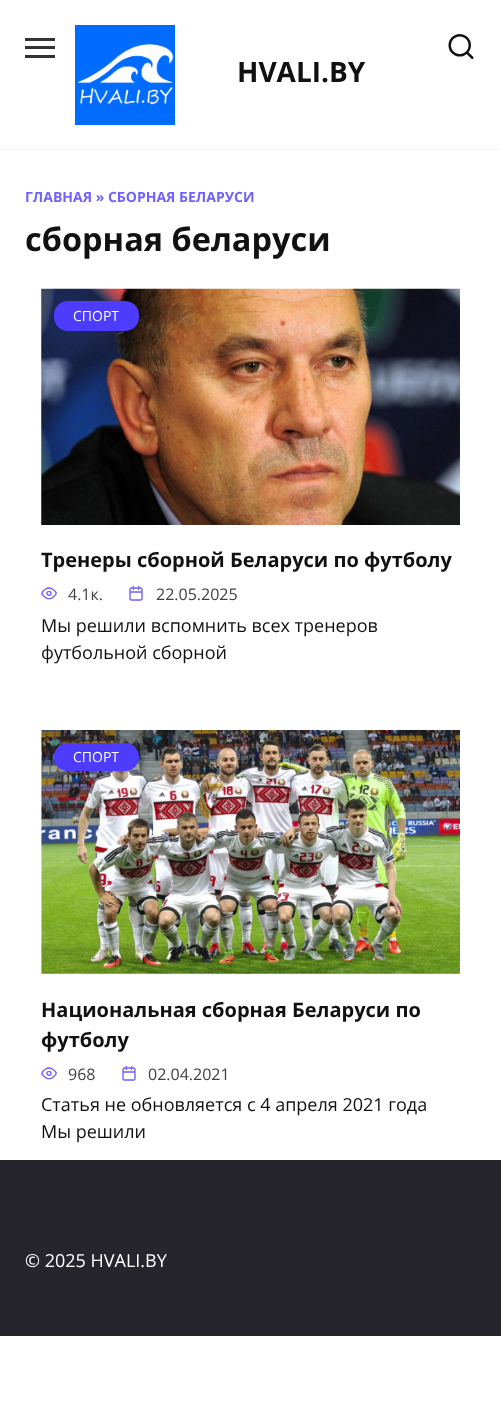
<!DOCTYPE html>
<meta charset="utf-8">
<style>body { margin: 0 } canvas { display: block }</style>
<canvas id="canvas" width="501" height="1418"></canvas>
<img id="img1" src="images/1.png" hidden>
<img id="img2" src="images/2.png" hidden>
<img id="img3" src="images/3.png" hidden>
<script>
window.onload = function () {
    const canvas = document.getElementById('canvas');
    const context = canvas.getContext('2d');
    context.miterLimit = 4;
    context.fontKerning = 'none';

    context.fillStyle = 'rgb(255, 255, 255)';
    context.fillRect(0, 0, 501, 1418);
    context.fillStyle = 'rgb(242, 245, 249)';
    context.fillRect(0, 149, 501, 1);
    context.fillStyle = 'rgb(51, 51, 51)';
    context.fillRect(25, 38, 30, 3);
    context.fillRect(25, 46, 30, 3);
    context.fillRect(25, 55, 30, 3);
    context.drawImage(document.getElementById('img1'), 75, 25, 100, 100);
    context.drawImage(document.getElementById('img2'), 41, 288, 419, 237);
    context.fillStyle = 'rgb(77, 59, 254)';
    context.beginPath();
    context.roundRect(54, 301, 85, 30, 14);
    context.fill();
    context.drawImage(document.getElementById('img3'), 41, 730, 419, 244);
    context.beginPath();
    context.roundRect(54, 743, 85, 28, 14);
    context.fill();
    context.fillStyle = 'rgb(38, 37, 45)';
    context.fillRect(0, 1160, 501, 176);
    context.font = '30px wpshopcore';
    context.fillStyle = 'rgb(17, 17, 17)';
    context.fillText('🔍', 446, 59);
    context.font = 'bold 28px Open Sans';
    context.fillText('HVALI.BY', 237, 82);
    context.font = 'bold 14px Open Sans';
    context.fillStyle = 'rgb(113, 98, 254)';
    context.fillText('ГЛАВНАЯ » СБОРНАЯ БЕЛАРУСИ', 25, 202);
    context.font = 'bold 32.5px Open Sans';
    context.fillStyle = 'rgb(17, 17, 17)';
    context.fillText('сборная беларуси', 25, 251);
    context.font = '14px Open Sans';
    context.fillStyle = 'rgb(255, 255, 255)';
    context.fillText('СПОРТ', 73, 321);
    context.font = 'bold 20px Open Sans';
    context.fillStyle = 'rgb(17, 17, 17)';
    context.fillText('Тренеры сборной Беларуси по футболу', 41, 567);
    context.font = '16px wpshopcore';
    context.fillStyle = 'rgb(113, 98, 254)';
    context.fillText('👀', 41, 600);
    context.font = '16px Open Sans';
    context.fillStyle = 'rgb(65, 65, 65)';
    context.fillText('4.1к.', 68, 600);
    context.font = '16px wpshopcore';
    context.fillStyle = 'rgb(113, 98, 254)';
    context.fillText('📅', 128, 600);
    context.font = '16px Open Sans';
    context.fillStyle = 'rgb(65, 65, 65)';
    context.fillText('22.05.2025', 156, 600);
    context.font = '18px Open Sans';
    context.fillStyle = 'rgb(17, 17, 17)';
    context.fillText('Мы решили вспомнить всех тренеров', 41, 632);
    context.fillText('футбольной сборной', 41, 659);
    context.font = '14px Open Sans';
    context.fillStyle = 'rgb(255, 255, 255)';
    context.fillText('СПОРТ', 73, 762);
    context.font = 'bold 20px Open Sans';
    context.fillStyle = 'rgb(17, 17, 17)';
    context.fillText('Национальная сборная Беларуси по', 41, 1017);
    context.fillText('футболу', 41, 1047);
    context.font = '16px wpshopcore';
    context.fillStyle = 'rgb(113, 98, 254)';
    context.fillText('👀', 41, 1080);
    context.font = '16px Open Sans';
    context.fillStyle = 'rgb(65, 65, 65)';
    context.fillText('968', 68, 1080);
    context.font = '16px wpshopcore';
    context.fillStyle = 'rgb(113, 98, 254)';
    context.fillText('📅', 121, 1080);
    context.font = '16px Open Sans';
    context.fillStyle = 'rgb(65, 65, 65)';
    context.fillText('02.04.2021', 148, 1080);
    context.font = '18px Open Sans';
    context.fillStyle = 'rgb(17, 17, 17)';
    context.fillText('Статья не обновляется с 4 апреля 2021 года', 41, 1111);
    context.fillText('Мы решили', 41, 1138);
    context.fillStyle = 'rgb(255, 255, 255)';
    context.fillText('© 2025 HVALI.BY', 25, 1267);
};
</script>
